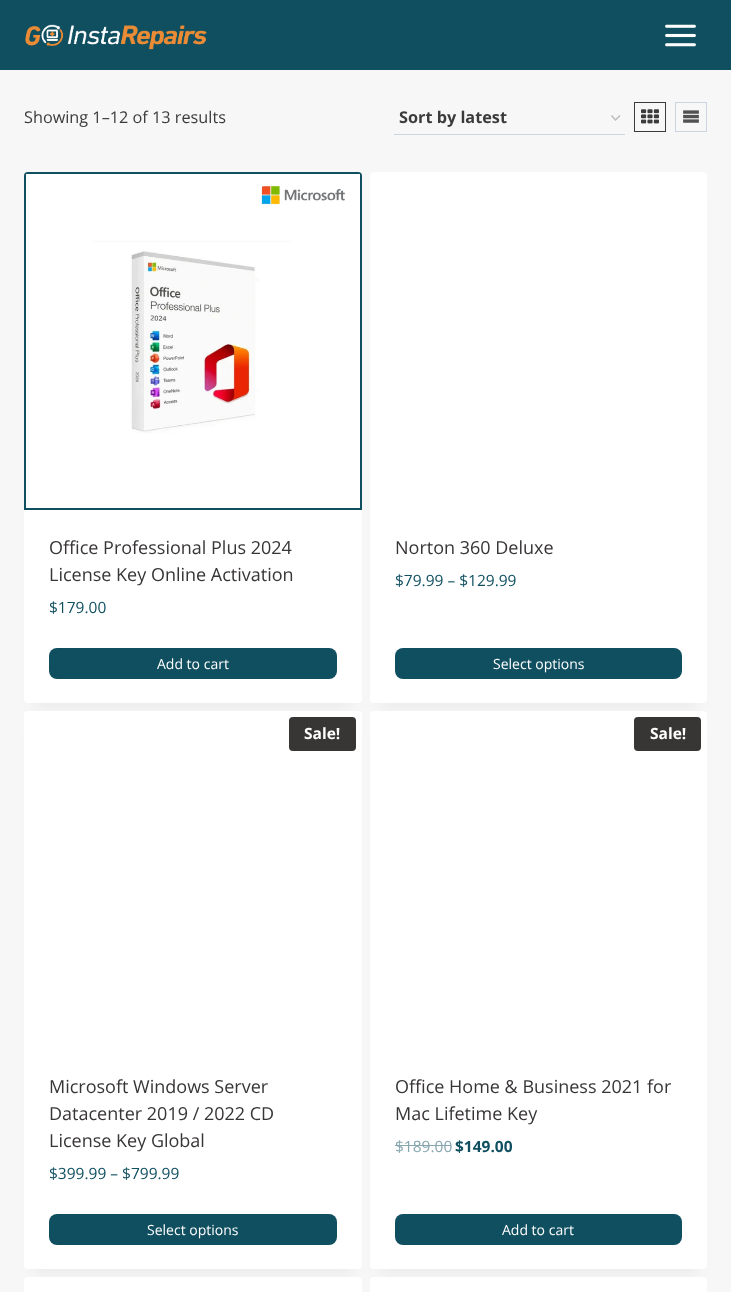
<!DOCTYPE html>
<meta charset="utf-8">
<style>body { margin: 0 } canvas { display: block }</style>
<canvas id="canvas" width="731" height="1292"></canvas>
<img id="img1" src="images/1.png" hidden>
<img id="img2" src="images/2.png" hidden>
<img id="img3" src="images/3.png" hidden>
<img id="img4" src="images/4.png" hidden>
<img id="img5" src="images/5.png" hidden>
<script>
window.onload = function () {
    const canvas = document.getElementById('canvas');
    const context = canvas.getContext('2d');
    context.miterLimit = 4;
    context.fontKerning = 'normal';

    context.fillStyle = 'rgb(247, 247, 247)';
    context.fillRect(0, 0, 731, 1292);
    context.fillStyle = 'rgb(15, 79, 96)';
    context.fillRect(0, 0, 731, 70);
    context.drawImage(document.getElementById('img1'), 25, 24, 182, 26);
    context.drawImage(document.getElementById('img2'), 665, 24, 31, 23);
    context.beginPath();
    context.moveTo(611.5, 115.5);
    context.lineTo(615.5, 120);
    context.lineTo(620, 115.5);
    context.strokeStyle = 'rgb(187, 187, 187)';
    context.lineWidth = 1.4;
    context.stroke();
    context.fillStyle = 'rgb(203, 213, 224)';
    context.fillRect(394, 134, 231, 1);
    context.strokeStyle = 'rgb(59, 59, 59)';
    context.lineWidth = 1;
    context.strokeRect(634.5, 102.5, 31, 29);
    context.drawImage(document.getElementById('img3'), 641, 109, 18, 15);
    context.strokeStyle = 'rgb(203, 213, 224)';
    context.strokeRect(675.5, 102.5, 31, 29);
    context.drawImage(document.getElementById('img4'), 683, 110, 16, 13);
    context.fillStyle = 'rgba(0, 0, 0, 0.05)';
    context.filter = 'blur(7.5px)';
    context.beginPath();
    context.rect(34, 197, 318, 511);
    context.fill();
    context.filter = 'none';
    context.fillStyle = 'rgb(255, 255, 255)';
    context.beginPath();
    context.roundRect(24, 172, 338, 531, 4);
    context.fill();
    context.drawImage(document.getElementById('img5'), 24, 172, 338, 338);
    context.fillStyle = 'rgb(15, 79, 96)';
    context.beginPath();
    context.roundRect(49, 648, 288, 31, 8);
    context.fill();
    context.fillStyle = 'rgba(0, 0, 0, 0.05)';
    context.filter = 'blur(7.5px)';
    context.beginPath();
    context.rect(380, 197, 317, 511);
    context.fill();
    context.filter = 'none';
    context.fillStyle = 'rgb(255, 255, 255)';
    context.beginPath();
    context.roundRect(370, 172, 337, 531, 4);
    context.fill();
    context.fillStyle = 'rgb(15, 79, 96)';
    context.beginPath();
    context.roundRect(395, 648, 287, 31, 8);
    context.fill();
    context.fillStyle = 'rgba(0, 0, 0, 0.05)';
    context.filter = 'blur(7.5px)';
    context.beginPath();
    context.rect(34, 736, 318, 538);
    context.fill();
    context.filter = 'none';
    context.fillStyle = 'rgb(255, 255, 255)';
    context.beginPath();
    context.roundRect(24, 711, 338, 558, 4);
    context.fill();
    context.fillStyle = 'rgb(56, 53, 53)';
    context.beginPath();
    context.roundRect(289, 717, 67, 34, 4);
    context.fill();
    context.fillStyle = 'rgb(15, 79, 96)';
    context.beginPath();
    context.roundRect(49, 1214, 288, 31, 8);
    context.fill();
    context.fillStyle = 'rgba(0, 0, 0, 0.05)';
    context.filter = 'blur(7.5px)';
    context.beginPath();
    context.rect(380, 736, 317, 538);
    context.fill();
    context.filter = 'none';
    context.fillStyle = 'rgb(255, 255, 255)';
    context.beginPath();
    context.roundRect(370, 711, 337, 558, 4);
    context.fill();
    context.fillStyle = 'rgb(56, 53, 53)';
    context.beginPath();
    context.roundRect(634, 717, 67, 34, 4);
    context.fill();
    context.fillStyle = 'rgb(135, 167, 176)';
    context.fillRect(395, 1145, 56, 1);
    context.fillStyle = 'rgb(15, 79, 96)';
    context.beginPath();
    context.roundRect(395, 1214, 287, 31, 8);
    context.fill();
    context.fillStyle = 'rgb(255, 255, 255)';
    context.beginPath();
    context.roundRect(24, 1277, 338, 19, 4);
    context.fill();
    context.beginPath();
    context.roundRect(370, 1277, 337, 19, 4);
    context.fill();
    context.font = '16.25px Open Sans';
    context.fillStyle = 'rgb(59, 59, 59)';
    context.fillText('Showing 1–12 of 13 results', 24, 123);
    context.font = 'bold 16.25px Open Sans';
    context.fillText('Sort by latest', 399, 123);
    context.font = '18px Open Sans';
    context.fillStyle = 'rgb(56, 53, 53)';
    context.fillText('Office Professional Plus 2024', 49, 554);
    context.fillText('License Key Online Activation', 49, 581);
    context.font = '15.5px Open Sans';
    context.fillStyle = 'rgb(15, 79, 96)';
    context.fillText('$179.00', 49, 613);
    context.font = '14px Open Sans';
    context.fillStyle = 'rgb(255, 254, 254)';
    context.fillText('Add to cart', 157, 669);
    context.font = '18px Open Sans';
    context.fillStyle = 'rgb(56, 53, 53)';
    context.fillText('Norton 360 Deluxe', 395, 554);
    context.font = '15.5px Open Sans';
    context.fillStyle = 'rgb(15, 79, 96)';
    context.fillText('$79.99 – $129.99', 395, 586);
    context.font = '14px Open Sans';
    context.fillStyle = 'rgb(255, 254, 254)';
    context.fillText('Select options', 493, 669);
    context.font = 'bold 15.5px Open Sans';
    context.fillText('Sale!', 304, 739);
    context.font = '18px Open Sans';
    context.fillStyle = 'rgb(56, 53, 53)';
    context.fillText('Microsoft Windows Server', 49, 1093);
    context.fillText('Datacenter 2019 / 2022 CD', 49, 1120);
    context.fillText('License Key Global', 49, 1147);
    context.font = '15.5px Open Sans';
    context.fillStyle = 'rgb(15, 79, 96)';
    context.fillText('$399.99 – $799.99', 49, 1179);
    context.font = '14px Open Sans';
    context.fillStyle = 'rgb(255, 254, 254)';
    context.fillText('Select options', 147, 1235);
    context.font = 'bold 15.5px Open Sans';
    context.fillText('Sale!', 650, 739);
    context.font = '18px Open Sans';
    context.fillStyle = 'rgb(56, 53, 53)';
    context.fillText('Office Home & Business 2021 for', 395, 1093);
    context.fillText('Mac Lifetime Key', 395, 1120);
    context.font = '15.5px Open Sans';
    context.fillStyle = 'rgb(135, 167, 176)';
    context.fillText('$189.00', 395, 1152);
    context.font = 'bold 15.5px Open Sans';
    context.fillStyle = 'rgb(15, 79, 96)';
    context.fillText('$149.00', 455, 1152);
    context.font = '14px Open Sans';
    context.fillStyle = 'rgb(255, 254, 254)';
    context.fillText('Add to cart', 502, 1235);
};
</script>
